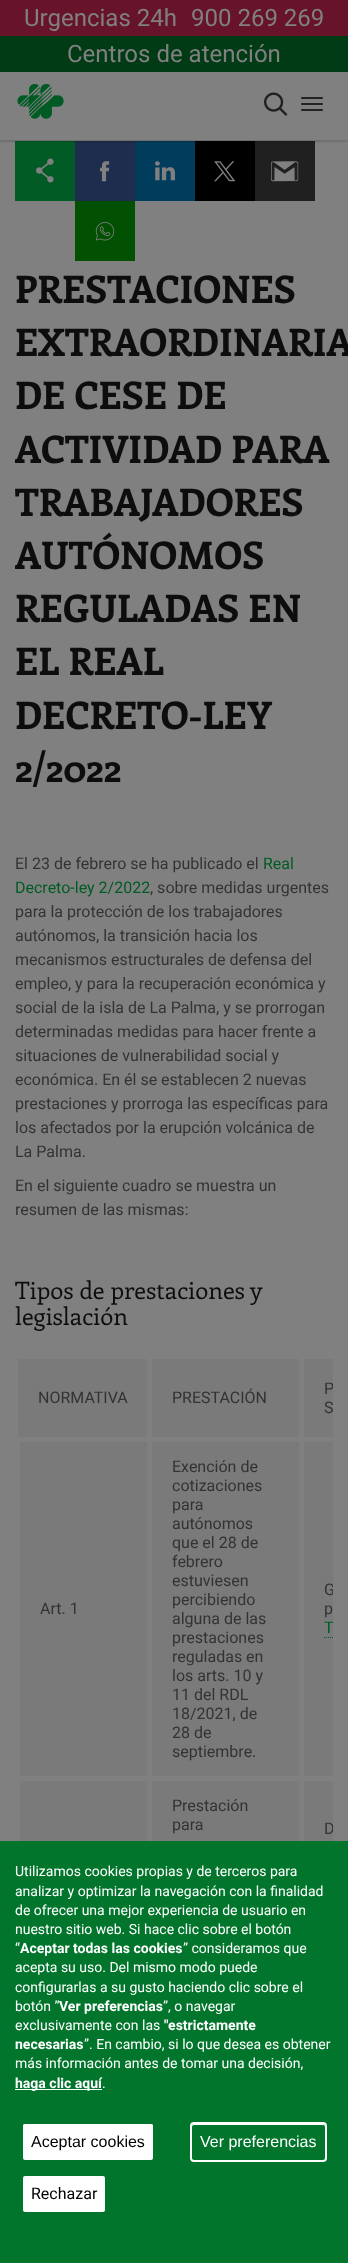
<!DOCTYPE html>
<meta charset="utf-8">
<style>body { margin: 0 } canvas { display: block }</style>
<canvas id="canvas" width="348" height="2263"></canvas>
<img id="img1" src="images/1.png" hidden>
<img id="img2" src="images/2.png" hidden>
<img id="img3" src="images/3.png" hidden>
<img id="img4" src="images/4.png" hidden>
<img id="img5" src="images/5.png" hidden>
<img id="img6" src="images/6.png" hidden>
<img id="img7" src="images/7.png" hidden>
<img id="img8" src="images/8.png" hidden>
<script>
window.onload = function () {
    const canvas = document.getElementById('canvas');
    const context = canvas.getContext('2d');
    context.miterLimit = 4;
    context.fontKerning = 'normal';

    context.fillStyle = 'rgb(128, 128, 128)';
    context.fillRect(0, 0, 348, 2263);
    context.fillStyle = 'rgb(0, 91, 37)';
    context.fillRect(15, 141, 60, 60);
    context.fillStyle = 'rgb(30, 45, 77)';
    context.fillRect(75, 141, 60, 60);
    context.fillStyle = 'rgb(0, 60, 91)';
    context.fillRect(135, 141, 60, 60);
    context.fillStyle = 'rgb(0, 0, 0)';
    context.fillRect(195, 141, 60, 60);
    context.fillStyle = 'rgb(32, 32, 32)';
    context.fillRect(255, 141, 60, 60);
    context.save();
    context.beginPath();
    context.rect(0, 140, 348, 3);
    context.clip();
    context.fillStyle = 'rgba(0, 0, 0, 0.15)';
    context.filter = 'blur(1px)';
    context.beginPath();
    context.rect(0, 2, 348, 140);
    context.fill();
    context.filter = 'none';
    context.restore();
    context.fillStyle = 'rgb(103, 19, 42)';
    context.fillRect(0, 0, 348, 36);
    context.fillStyle = 'rgb(0, 59, 22)';
    context.fillRect(0, 36, 348, 36);
    context.drawImage(document.getElementById('img1'), 17, 84, 47, 35);
    context.fillStyle = 'rgb(34, 34, 34)';
    context.beginPath();
    context.roundRect(301, 97, 22, 2, 1);
    context.fill();
    context.beginPath();
    context.roundRect(301, 103, 22, 2, 1);
    context.fill();
    context.beginPath();
    context.roundRect(301, 109, 22, 2, 1);
    context.fill();
    context.drawImage(document.getElementById('img2'), 264, 92, 24, 24);
    context.drawImage(document.getElementById('img3'), 36, 158, 18, 25);
    context.drawImage(document.getElementById('img4'), 100, 161, 10, 21);
    context.drawImage(document.getElementById('img5'), 155, 161, 20, 20);
    context.drawImage(document.getElementById('img6'), 214, 161, 22, 21);
    context.drawImage(document.getElementById('img7'), 271, 161, 28, 21);
    context.fillStyle = 'rgb(2, 80, 2)';
    context.fillRect(75, 201, 60, 60);
    context.drawImage(document.getElementById('img8'), 95, 222, 20, 19);
    context.fillStyle = 'rgb(123, 122, 122)';
    context.fillRect(18, 1359, 315, 78);
    context.fillRect(20, 1442, 313, 334);
    context.save();
    context.beginPath();
    context.rect(15, 1339, 318, 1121);
    context.clip();
    context.beginPath();
    context.moveTo(324, 1637.5);
    context.lineTo(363, 1637.5);
    context.strokeStyle = 'rgb(0, 91, 37)';
    context.setLineDash([1, 1]);
    context.stroke();
    context.restore();
    context.fillRect(20, 1781, 313, 60);
    context.fillStyle = 'rgb(128, 128, 128)';
    context.fillRect(147, 1356, 5, 485);
    context.fillRect(299, 1356, 5, 485);
    context.fillStyle = 'rgb(0, 117, 43)';
    context.fillRect(0, 1841, 348, 422);
    context.fillStyle = 'rgb(255, 255, 255)';
    context.fillRect(15, 2089, 87, 1);
    context.beginPath();
    context.roundRect(23, 2124, 130, 36, 2);
    context.fill();
    context.beginPath();
    context.moveTo(25, 2125);
    context.lineTo(151, 2125);
    context.bezierCurveTo(152, 2125, 153, 2126, 153, 2127);
    context.bezierCurveTo(153, 2126, 153, 2124, 151, 2124);
    context.lineTo(25, 2124);
    context.bezierCurveTo(23, 2124, 23, 2126, 23, 2127);
    context.bezierCurveTo(23, 2126, 24, 2125, 25, 2125);
    context.closePath();
    context.fill();
    context.beginPath();
    context.moveTo(194, 2125);
    context.lineTo(323, 2125);
    context.bezierCurveTo(324, 2125, 325, 2126, 325, 2127);
    context.bezierCurveTo(325, 2126, 325, 2124, 323, 2124);
    context.lineTo(194, 2124);
    context.bezierCurveTo(192, 2124, 192, 2126, 192, 2127);
    context.bezierCurveTo(192, 2126, 193, 2125, 194, 2125);
    context.closePath();
    context.fill();
    context.beginPath();
    context.roundRect(191, 2123, 135, 38, 3);
    context.strokeStyle = 'rgb(255, 255, 255)';
    context.lineWidth = 2;
    context.stroke();
    context.beginPath();
    context.roundRect(23, 2176, 82, 36, 2);
    context.fill();
    context.font = '24px Roboto';
    context.fillStyle = 'rgb(128, 128, 128)';
    context.fillText('Urgencias 24h', 24, 26);
    context.fillText('900 269 269', 191, 26);
    context.fillText('Centros de atención', 67, 62);
    context.font = 'bold 38px Enriqueta';
    context.fillStyle = 'rgb(13, 13, 13)';
    context.fillText('PRESTACIONES', 15, 303);
    context.fillText('EXTRAORDINARIA', 15, 356);
    context.fillText('DE CESE DE', 15, 409);
    context.fillText('ACTIVIDAD PARA', 15, 463);
    context.fillText('TRABAJADORES', 15, 516);
    context.fillText('AUTÓNOMOS', 15, 569);
    context.fillText('REGULADAS EN', 15, 622);
    context.fillText('EL REAL', 15, 675);
    context.fillText('DECRETO-LEY', 15, 729);
    context.fillText('2/2022', 15, 782);
    context.font = '16px Roboto';
    context.fillStyle = 'rgb(51, 51, 51)';
    context.fillText('El 23 de febrero se ha publicado el', 15, 869);
    context.fillStyle = 'rgb(0, 91, 37)';
    context.fillText('Real', 263, 869);
    context.fillText('Decreto-ley 2/2022', 15, 893);
    context.fillStyle = 'rgb(51, 51, 51)';
    context.fillText(', sobre medidas urgentes', 150, 893);
    context.fillText('para la protección de los trabajadores', 15, 917);
    context.fillText('autónomos, la transición hacia los', 15, 941);
    context.fillText('mecanismos estructurales de defensa del', 15, 965);
    context.fillText('empleo, y para la recuperación económica y', 15, 989);
    context.fillText('social de la isla de La Palma, y se prorrogan', 15, 1013);
    context.fillText('determinadas medidas para hacer frente a', 15, 1037);
    context.fillText('situaciones de vulnerabilidad social y', 15, 1061);
    context.fillText('económica. En él se establecen 2 nuevas', 15, 1085);
    context.fillText('prestaciones y prorroga las específicas para', 15, 1109);
    context.fillText('los afectados por la erupción volcánica de', 15, 1133);
    context.fillText('La Palma.', 15, 1157);
    context.fillText('En el siguiente cuadro se muestra un', 15, 1191);
    context.fillText('resumen de las mismas:', 15, 1215);
    context.font = '24px Enriqueta';
    context.fillStyle = 'rgb(13, 13, 13)';
    context.fillText('Tipos de prestaciones y', 15, 1299);
    context.fillText('legislación', 15, 1325);
    context.font = '16px Roboto';
    context.fillStyle = 'rgb(51, 51, 51)';
    context.fillText('NORMATIVA', 38, 1403);
    context.fillText('PRESTACIÓN', 172, 1403);
    context.save();
    context.beginPath();
    context.rect(15, 1339, 318, 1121);
    context.clip();
    context.fillText('P', 324, 1394);
    context.restore();
    context.fillText('S', 324, 1413);
    context.fillText('Art. 1', 40, 1614);
    context.fillText('Exención de', 172, 1472);
    context.fillText('cotizaciones', 172, 1491);
    context.fillText('para', 172, 1510);
    context.fillText('autónomos', 172, 1529);
    context.fillText('que el 28 de', 172, 1548);
    context.fillText('febrero', 172, 1567);
    context.fillText('estuviesen', 172, 1586);
    context.fillText('percibiendo', 172, 1605);
    context.fillText('alguna de las', 172, 1624);
    context.fillText('prestaciones', 172, 1643);
    context.fillText('reguladas en', 172, 1662);
    context.fillText('los arts. 10 y', 172, 1681);
    context.fillText('11 del RDL', 172, 1700);
    context.fillText('18/2021, de', 172, 1719);
    context.fillText('28 de', 172, 1738);
    context.fillText('septiembre.', 172, 1757);
    context.save();
    context.beginPath();
    context.rect(15, 1339, 318, 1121);
    context.clip();
    context.fillText('G', 324, 1595);
    context.restore();
    context.fillText('p', 324, 1614);
    context.fillStyle = 'rgb(0, 91, 37)';
    context.fillText('T', 324, 1633);
    context.fillStyle = 'rgb(51, 51, 51)';
    context.fillText('Prestación', 172, 1811);
    context.fillText('para', 172, 1830);
    context.save();
    context.beginPath();
    context.rect(15, 1339, 318, 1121);
    context.clip();
    context.fillText('D', 324, 1834);
    context.restore();
    context.font = '14px Roboto';
    context.fillStyle = 'rgb(255, 255, 255)';
    context.fillText('Utilizamos cookies propias y de terceros para', 15, 1876);
    context.fillText('analizar y optimizar la navegación con la finalidad', 15, 1896);
    context.fillText('de ofrecer una mejor experiencia de usuario en', 15, 1915);
    context.fillText('nuestro sitio web. Si hace clic sobre el botón', 15, 1934);
    context.fillText('“', 15, 1953);
    context.font = 'bold 14px Roboto';
    context.fillText('Aceptar todas las cookies', 20, 1953);
    context.font = '14px Roboto';
    context.fillText('” consideramos que', 183, 1953);
    context.fillText('acepta su uso. Del mismo modo puede', 15, 1972);
    context.fillText('configurarlas a su gusto haciendo clic sobre el', 15, 1992);
    context.fillText('botón ”', 15, 2011);
    context.font = 'bold 14px Roboto';
    context.fillText('Ver preferencias', 59, 2011);
    context.font = '14px Roboto';
    context.fillText('”, o navegar', 163, 2011);
    context.fillText('exclusivamente con las', 15, 2030);
    context.font = 'bold 14px Roboto';
    context.fillText('"estrictamente', 164, 2030);
    context.fillText('necesarias', 15, 2049);
    context.font = '14px Roboto';
    context.fillText('”. En cambio, si lo que desea es obtener', 84, 2049);
    context.fillText('más información antes de tomar una decisión,', 15, 2068);
    context.font = 'bold 14px Roboto';
    context.fillText('haga clic aquí', 15, 2088);
    context.font = '14px Roboto';
    context.fillText('.', 102, 2088);
    context.font = '16px Liberation Sans';
    context.fillStyle = 'rgb(0, 0, 0)';
    context.fillText('Aceptar cookies', 31, 2147);
    context.fillStyle = 'rgb(255, 255, 255)';
    context.fillText('Ver preferencias', 200, 2147);
    context.font = '16px Roboto';
    context.fillStyle = 'rgb(0, 0, 0)';
    context.fillText('Rechazar', 31, 2199);
};
</script>
